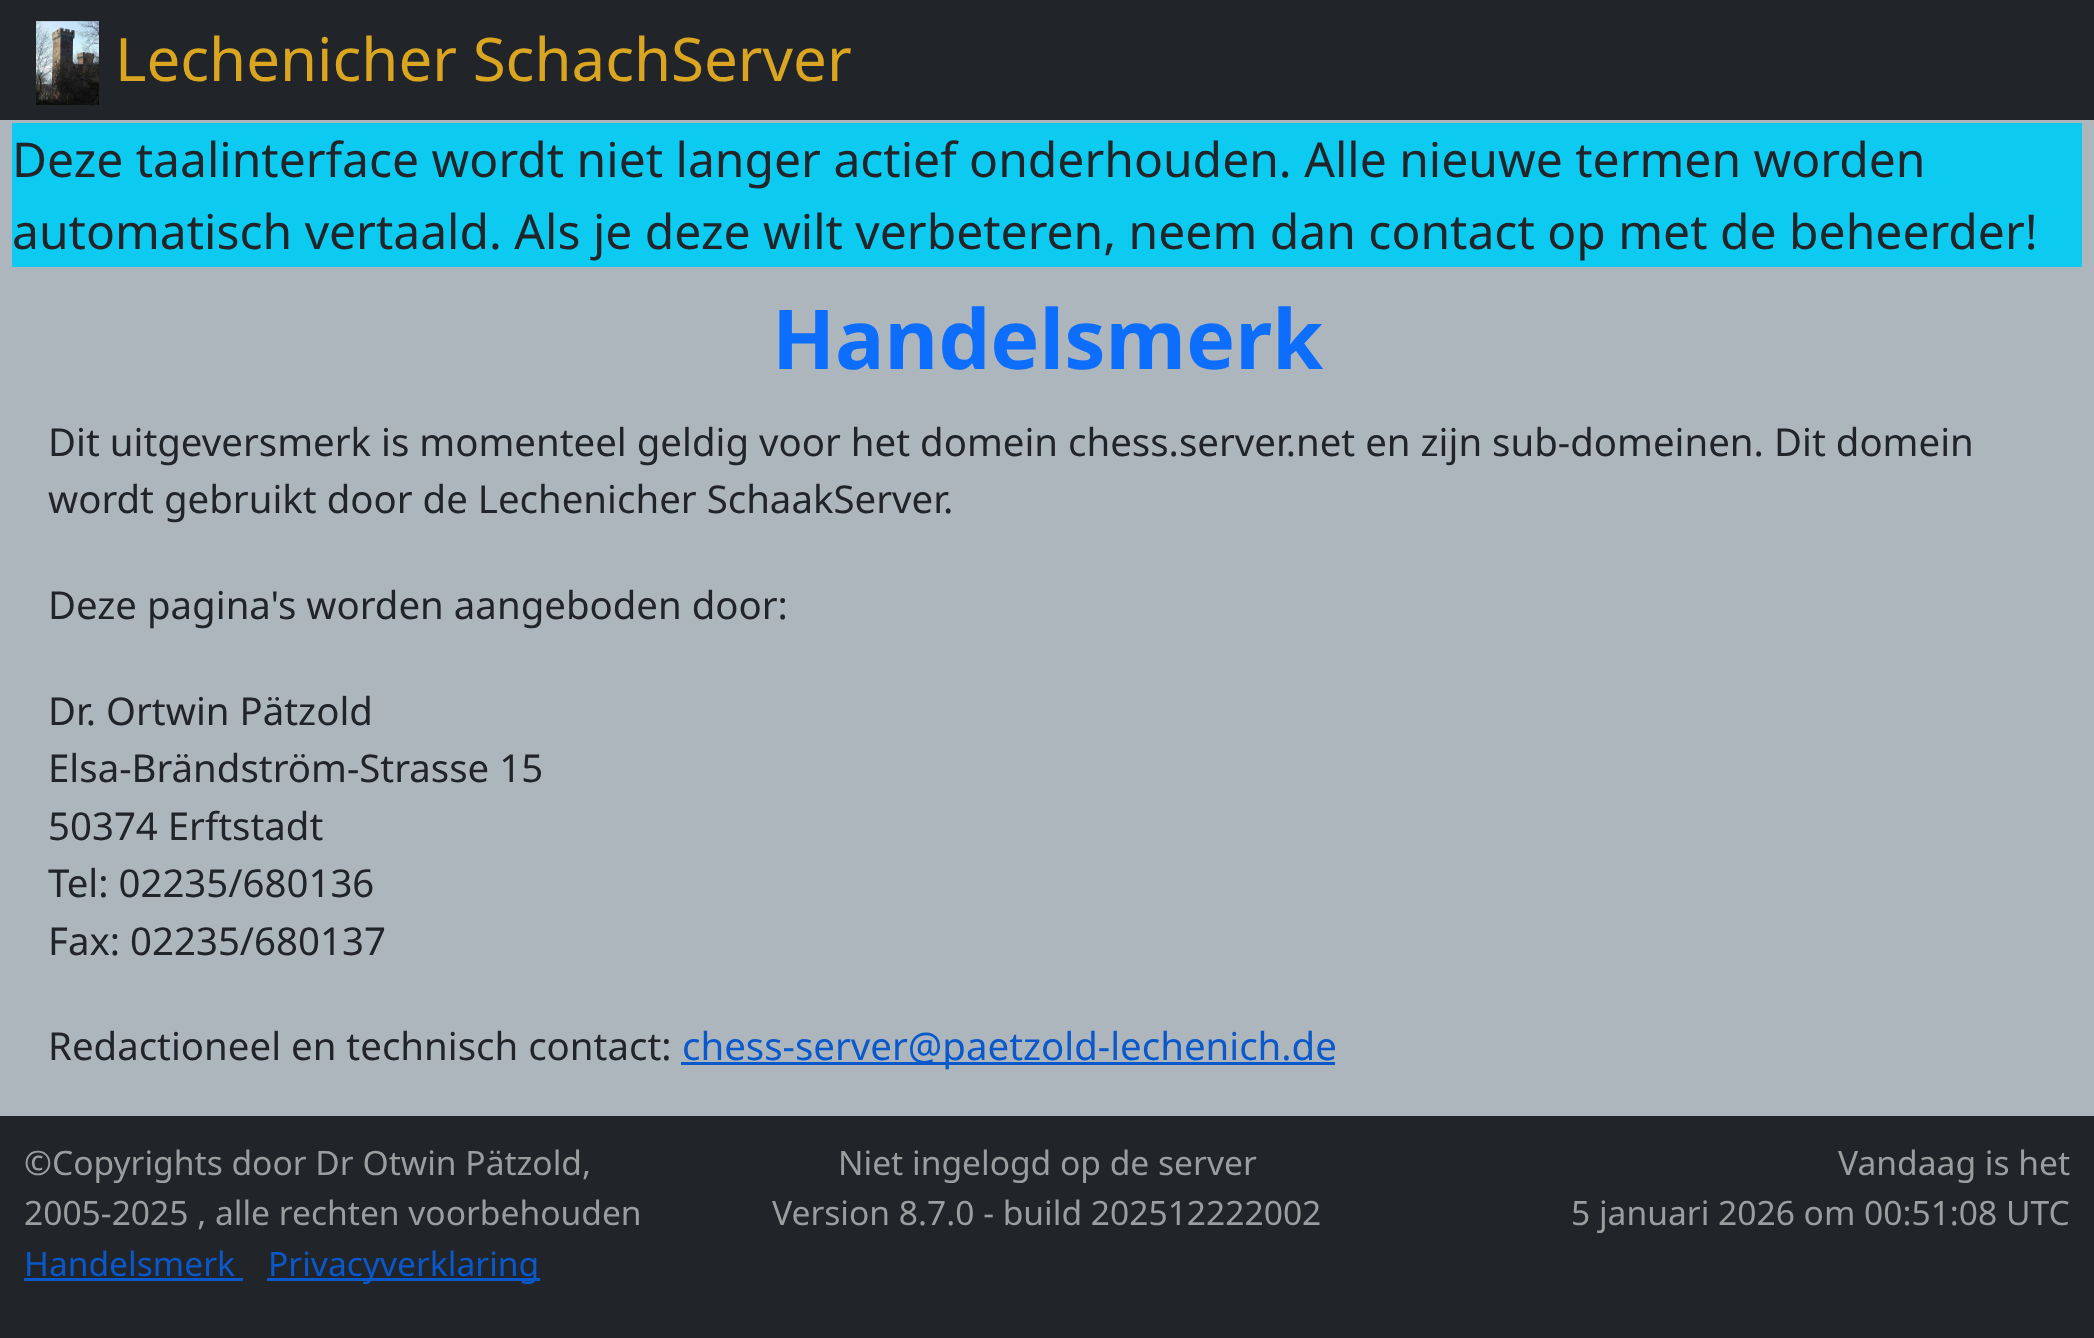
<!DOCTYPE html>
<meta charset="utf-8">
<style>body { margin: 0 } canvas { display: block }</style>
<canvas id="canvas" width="2094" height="1338"></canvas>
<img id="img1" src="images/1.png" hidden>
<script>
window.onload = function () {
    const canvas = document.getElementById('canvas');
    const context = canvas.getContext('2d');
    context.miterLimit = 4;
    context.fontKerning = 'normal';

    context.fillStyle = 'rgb(173, 181, 189)';
    context.fillRect(0, 0, 2094, 1338);
    context.fillStyle = 'rgb(33, 37, 41)';
    context.fillRect(0, 0, 2094, 120);
    context.drawImage(document.getElementById('img1'), 36, 21, 63, 84);
    context.fillStyle = 'rgb(13, 202, 240)';
    context.fillRect(12, 123, 2070, 144);
    context.fillStyle = 'rgb(10, 88, 202)';
    context.fillRect(681, 1062, 654, 3);
    context.fillStyle = 'rgb(33, 37, 41)';
    context.fillRect(0, 1116, 2094, 222);
    context.fillStyle = 'rgb(10, 88, 202)';
    context.fillRect(24, 1278, 219, 3);
    context.fillRect(267, 1278, 273, 3);
    context.font = '60px Noto Sans';
    context.fillStyle = 'rgb(218, 165, 32)';
    context.fillText('Lechenicher SchachServer', 115, 81);
    context.font = '48px Noto Sans';
    context.fillStyle = 'rgb(33, 37, 41)';
    context.fillText('Deze taalinterface wordt niet langer actief onderhouden. Alle nieuwe termen worden', 12, 177);
    context.fillText('automatisch vertaald. Als je deze wilt verbeteren, neem dan contact op met de beheerder!', 12, 249);
    context.font = 'bold 82.5px Noto Sans';
    context.fillStyle = 'rgb(13, 110, 253)';
    context.fillText('Handelsmerk', 772, 369);
    context.font = '38.4px Noto Sans';
    context.fillStyle = 'rgb(33, 37, 41)';
    context.fillText('Dit uitgeversmerk is momenteel geldig voor het domein chess.server.net en zijn sub-domeinen.', 48, 456);
    context.fillText('Dit domein', 1774, 456);
    context.fillText('wordt gebruikt door de Lechenicher SchaakServer.', 48, 513);
    context.fillText('Deze pagina\'s worden aangeboden door:', 48, 619);
    context.fillText('Dr. Ortwin Pätzold', 48, 725);
    context.fillText('Elsa-Brändström-Strasse 15', 48, 782);
    context.fillText('50374 Erftstadt', 48, 840);
    context.fillText('Tel: 02235/680136', 48, 897);
    context.fillText('Fax: 02235/680137', 48, 955);
    context.fillText('Redactioneel en technisch contact:', 48, 1060);
    context.fillStyle = 'rgb(10, 88, 202)';
    context.fillText('chess-server@paetzold-lechenich.de', 682, 1060);
    context.font = '33.6px Noto Sans';
    context.fillStyle = 'rgb(155, 157, 159)';
    context.fillText('©Copyrights door Dr Otwin Pätzold,', 24, 1175);
    context.fillText('2005-2025 , alle rechten voorbehouden', 24, 1225);
    context.fillStyle = 'rgb(10, 88, 202)';
    context.fillText('Handelsmerk', 24, 1276);
    context.fillText('Privacyverklaring', 268, 1276);
    context.fillStyle = 'rgb(155, 157, 159)';
    context.fillText('Niet ingelogd op de server', 838, 1175);
    context.fillText('Version 8.7.0 - build 202512222002', 772, 1225);
    context.fillText('Vandaag is het', 1838, 1175);
    context.fillText('5 januari 2026 om 00:51:08 UTC', 1571, 1225);
};
</script>
